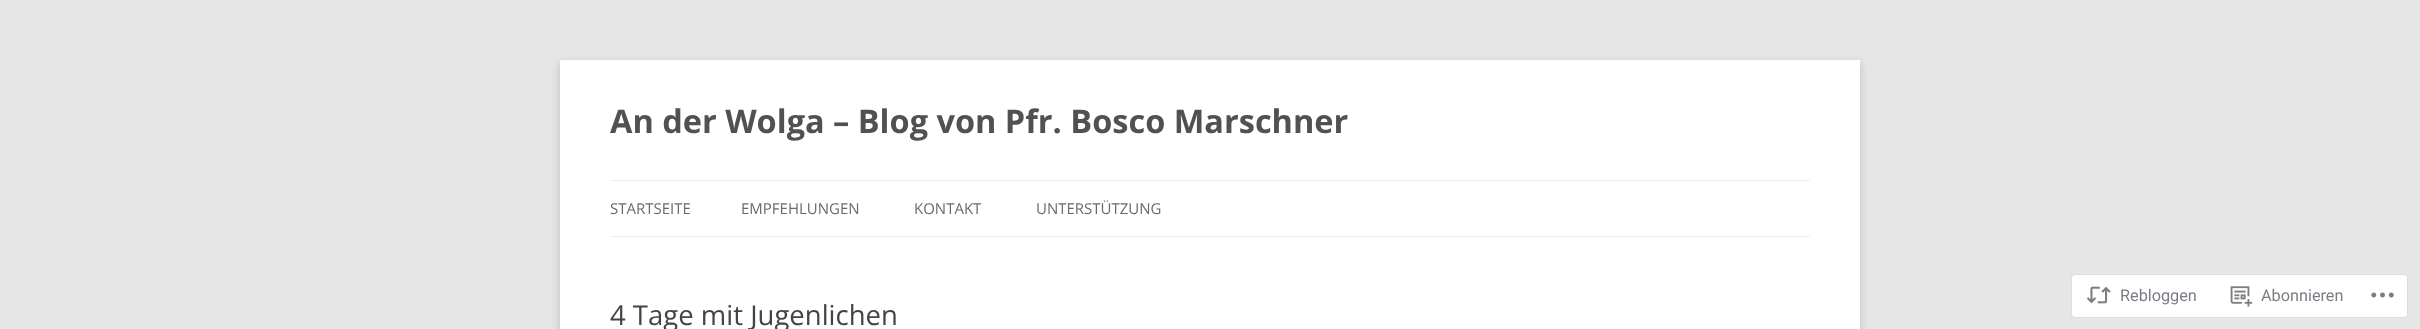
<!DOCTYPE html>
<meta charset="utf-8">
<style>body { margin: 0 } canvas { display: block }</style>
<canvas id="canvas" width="2420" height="329"></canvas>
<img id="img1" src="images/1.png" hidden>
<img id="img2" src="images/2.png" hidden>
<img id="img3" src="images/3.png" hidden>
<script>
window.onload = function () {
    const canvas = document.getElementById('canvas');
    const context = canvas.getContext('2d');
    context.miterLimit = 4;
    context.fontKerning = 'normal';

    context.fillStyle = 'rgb(230, 230, 230)';
    context.fillRect(0, 0, 2420, 329);
    context.fillStyle = 'rgba(100, 100, 100, 0.3)';
    context.filter = 'blur(4px)';
    context.beginPath();
    context.rect(560, 63, 1300, 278);
    context.fill();
    context.filter = 'none';
    context.fillStyle = 'rgb(255, 255, 255)';
    context.fillRect(560, 60, 1300, 269);
    context.fillStyle = 'rgb(237, 237, 237)';
    context.fillRect(610, 180, 1200, 1);
    context.fillRect(610, 236, 1200, 1);
    context.fillStyle = 'rgb(255, 255, 255)';
    context.beginPath();
    context.roundRect(2071.5, 274.5, 336, 43, 3.5);
    context.fill();
    context.strokeStyle = 'rgb(220, 220, 222)';
    context.stroke();
    context.drawImage(document.getElementById('img1'), 2086, 286, 25, 18);
    context.drawImage(document.getElementById('img2'), 2230, 286, 23, 21);
    context.drawImage(document.getElementById('img3'), 2371, 292, 23, 6);
    context.font = 'bold 32.5px Open Sans';
    context.fillStyle = 'rgb(81, 81, 81)';
    context.fillText('An der Wolga – Blog von Pfr. Bosco Marschner', 610, 133);
    context.font = '15px Open Sans';
    context.fillStyle = 'rgb(106, 106, 106)';
    context.fillText('STARTSEITE', 610, 214);
    context.fillText('EMPFEHLUNGEN', 741, 214);
    context.fillText('KONTAKT', 914, 214);
    context.fillText('UNTERSTÜTZUNG', 1036, 214);
    context.font = '27.5px Open Sans';
    context.fillStyle = 'rgb(68, 68, 68)';
    context.fillText('4 Tage mit Jugenlichen', 610, 325);
    context.font = '16.25px Roboto';
    context.fillStyle = 'rgb(122, 126, 132)';
    context.fillText('Rebloggen', 2120, 301);
    context.fillText('Abonnieren', 2261, 301);
};
</script>
